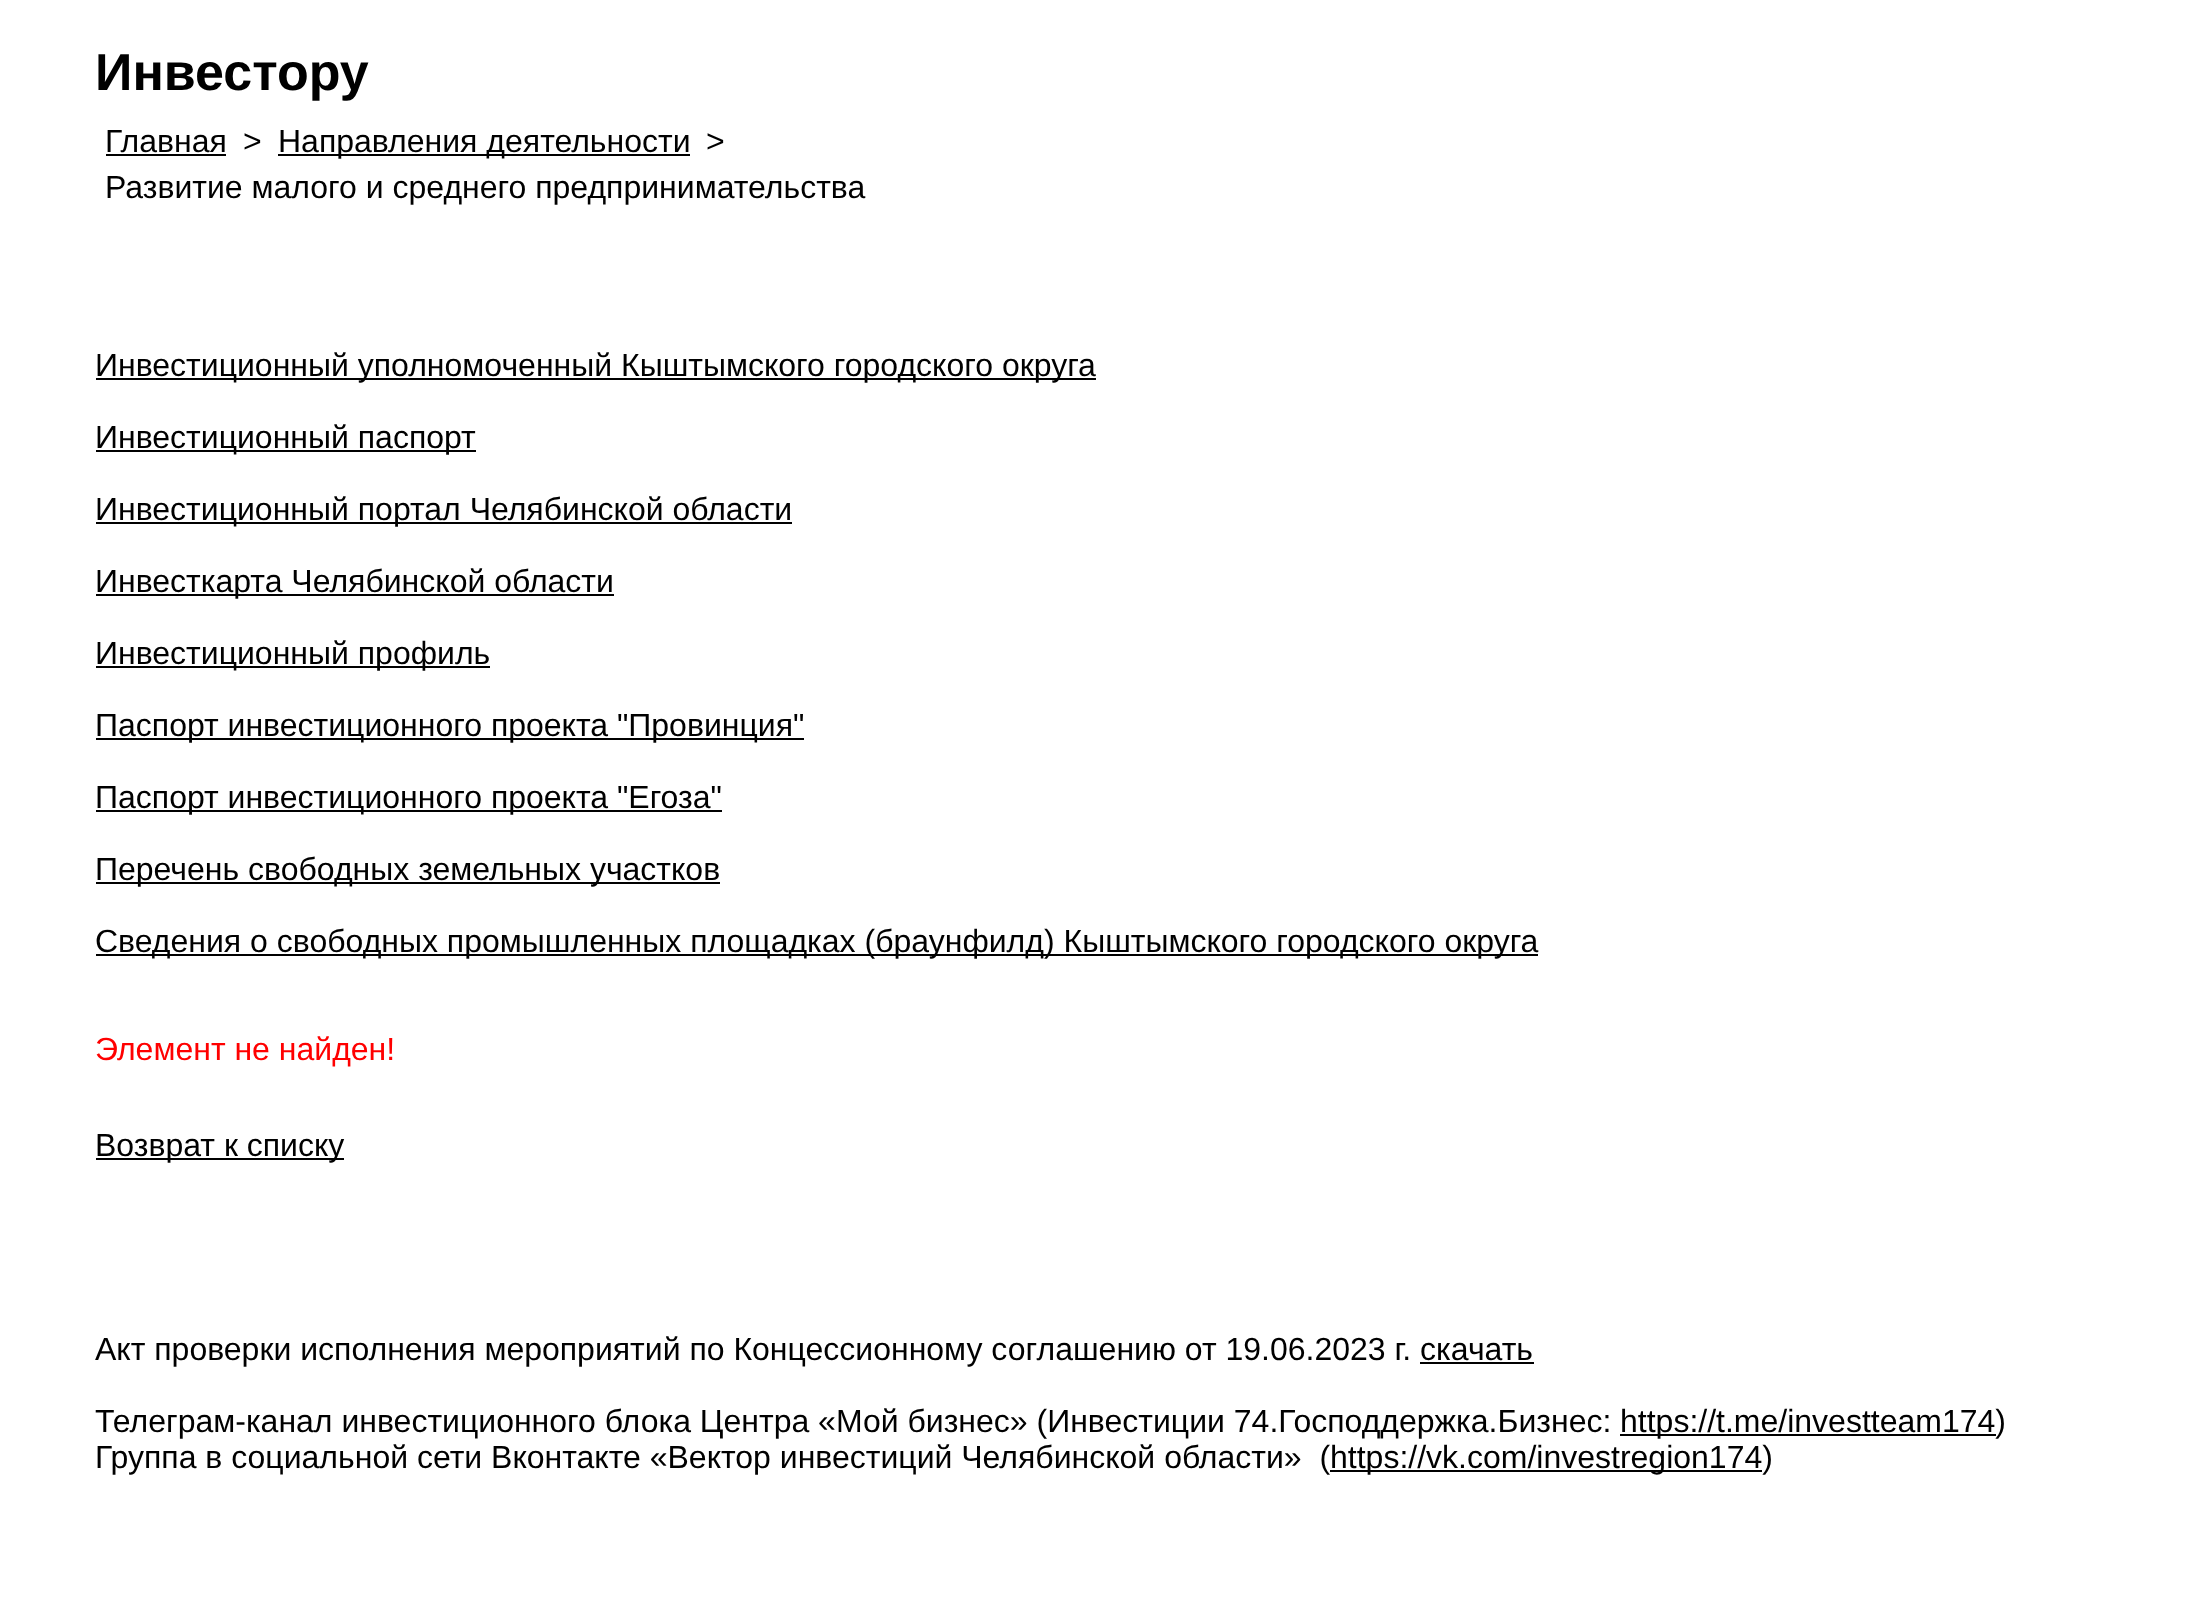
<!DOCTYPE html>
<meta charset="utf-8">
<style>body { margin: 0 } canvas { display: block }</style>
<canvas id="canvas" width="2197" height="1614"></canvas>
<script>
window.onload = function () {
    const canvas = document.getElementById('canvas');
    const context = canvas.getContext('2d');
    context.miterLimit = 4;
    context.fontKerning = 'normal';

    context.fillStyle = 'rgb(255, 255, 255)';
    context.fillRect(0, 0, 2197, 1614);
    context.fillStyle = 'rgb(0, 0, 0)';
    context.fillRect(106, 154, 120, 2);
    context.fillRect(278, 154, 412, 2);
    context.fillRect(96, 378, 1000, 2);
    context.fillRect(96, 450, 380, 2);
    context.fillRect(96, 522, 696, 2);
    context.fillRect(96, 594, 518, 2);
    context.fillRect(96, 666, 394, 2);
    context.fillRect(96, 738, 708, 2);
    context.fillRect(96, 810, 626, 2);
    context.fillRect(96, 882, 624, 2);
    context.fillRect(96, 954, 1442, 2);
    context.fillRect(96, 1158, 248, 2);
    context.fillRect(1420, 1362, 114, 2);
    context.fillRect(1620, 1434, 376, 2);
    context.fillRect(1330, 1470, 432, 2);
    context.font = 'bold 52px Liberation Sans';
    context.fillText('Инвестору', 95, 90);
    context.font = '32px Liberation Sans';
    context.fillText('Главная', 105, 152);
    context.fillText('>', 243, 152);
    context.fillText('Направления деятельности', 278, 152);
    context.fillText('>', 706, 152);
    context.fillText('Развитие малого и среднего предпринимательства', 105, 198);
    context.fillText('Инвестиционный уполномоченный Кыштымского городского округа', 95, 376);
    context.fillText('Инвестиционный паспорт', 95, 448);
    context.fillText('Инвестиционный портал Челябинской области', 95, 520);
    context.fillText('Инвесткарта Челябинской области', 95, 592);
    context.fillText('Инвестиционный профиль', 95, 664);
    context.fillText('Паспорт инвестиционного проекта "Провинция"', 95, 736);
    context.fillText('Паспорт инвестиционного проекта "Егоза"', 95, 808);
    context.fillText('Перечень свободных земельных участков', 95, 880);
    context.fillText('Сведения о свободных промышленных площадках (браунфилд) Кыштымского городского округа', 95, 952);
    context.fillStyle = 'rgb(255, 0, 0)';
    context.fillText('Элемент не найден!', 95, 1060);
    context.fillStyle = 'rgb(0, 0, 0)';
    context.fillText('Возврат к списку', 95, 1156);
    context.fillText('Акт проверки исполнения мероприятий по Концессионному соглашению от 19.06.2023 г. скачать', 95, 1360);
    context.fillText('Телеграм-канал инвестиционного блока Центра «Мой бизнес» (Инвестиции 74.Господдержка.Бизнес:', 95, 1432);
    context.fillText('https://t.me/investteam174)', 1620, 1432);
    context.fillText('Группа в социальной сети Вконтакте «Вектор инвестиций Челябинской области»  (', 95, 1468);
    context.fillText('https://vk.com/investregion174)', 1330, 1468);
};
</script>
